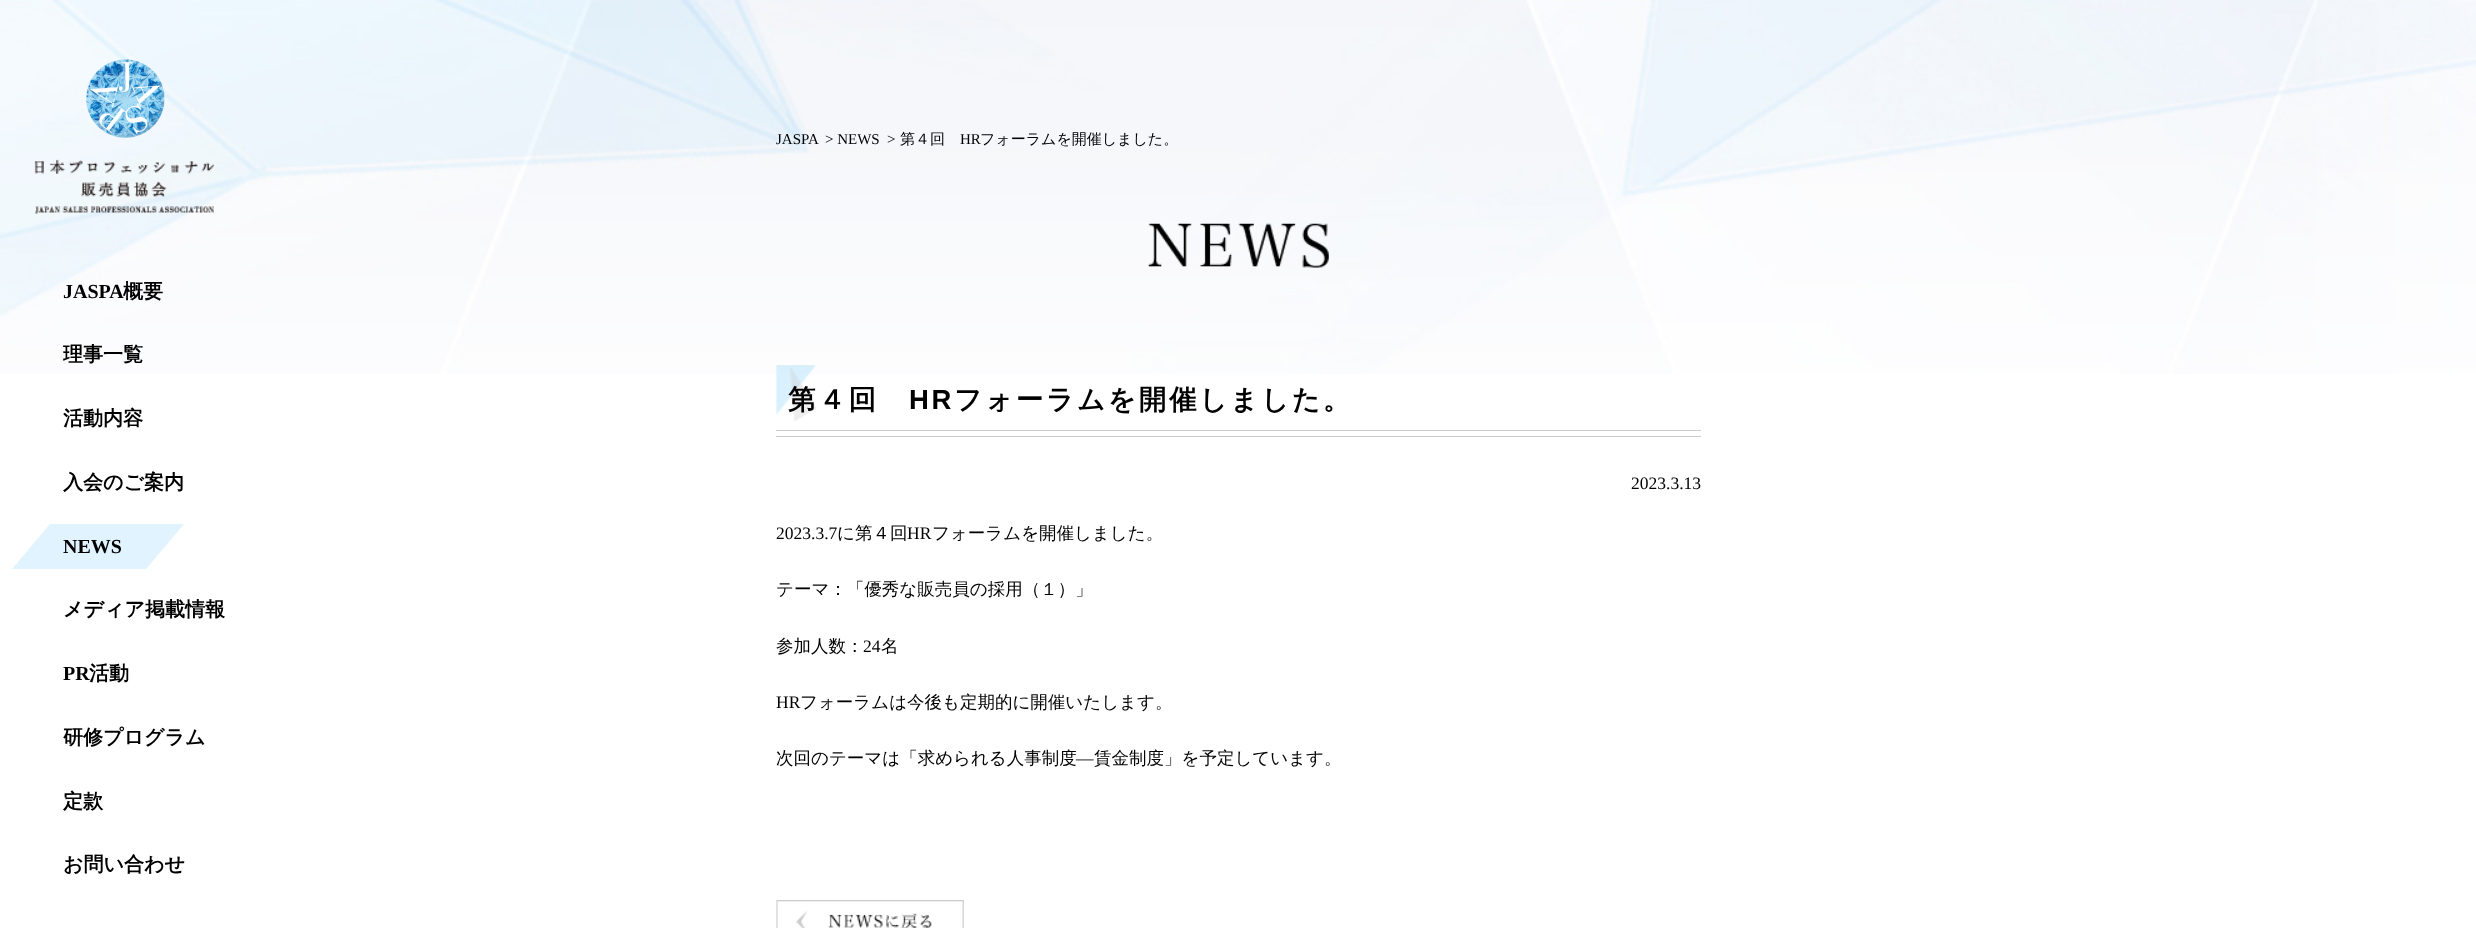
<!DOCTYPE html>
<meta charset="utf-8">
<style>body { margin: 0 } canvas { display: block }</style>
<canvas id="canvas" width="2476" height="928"></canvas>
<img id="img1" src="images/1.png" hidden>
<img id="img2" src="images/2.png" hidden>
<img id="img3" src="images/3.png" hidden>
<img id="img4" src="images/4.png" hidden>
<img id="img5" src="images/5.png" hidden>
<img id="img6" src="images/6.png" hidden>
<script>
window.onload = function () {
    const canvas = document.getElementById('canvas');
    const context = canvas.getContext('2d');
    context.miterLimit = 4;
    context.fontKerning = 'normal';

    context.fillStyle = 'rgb(255, 255, 255)';
    context.fillRect(0, 0, 2476, 928);
    context.drawImage(document.getElementById('img1'), 0, 0, 2476, 374);
    context.drawImage(document.getElementById('img2'), 86, 59, 79, 79);
    context.drawImage(document.getElementById('img3'), 34, 159, 180, 55);
    context.fillStyle = 'rgb(225, 243, 254)';
    context.beginPath();
    context.moveTo(50, 524);
    context.lineTo(184, 524);
    context.lineTo(146, 569);
    context.lineTo(12, 569);
    context.closePath();
    context.fill();
    context.drawImage(document.getElementById('img4'), 1148, 223, 181, 45);
    context.drawImage(document.getElementById('img5'), 776, 365, 41, 56);
    context.fillStyle = 'rgb(204, 204, 204)';
    context.fillRect(776, 436, 925, 1);
    context.fillRect(776, 430, 925, 1);
    context.drawImage(document.getElementById('img6'), 776, 900, 188, 28);
    context.font = 'bold 20px Liberation Serif';
    context.fillStyle = 'rgb(0, 0, 0)';
    context.fillText('JASPA', 63, 298);
    context.font = 'bold 20px WenQuanYi Zen Hei';
    context.fillText('概要', 123, 298);
    context.fillText('理事一覧', 63, 361);
    context.fillText('活動内容', 63, 425);
    context.fillText('入会のご案内', 63, 489);
    context.font = 'bold 20px Liberation Serif';
    context.fillText('NEWS', 63, 553);
    context.font = 'bold 20px WenQuanYi Zen Hei';
    context.fillText('メディア掲載情報', 63, 616);
    context.font = 'bold 20px Liberation Serif';
    context.fillText('PR', 63, 680);
    context.font = 'bold 20px WenQuanYi Zen Hei';
    context.fillText('活動', 89, 680);
    context.fillText('研修プログラム', 63, 744);
    context.fillText('定款', 63, 808);
    context.fillText('お問い合わせ', 63, 871);
    context.font = '15px Liberation Serif';
    context.fillText('JASPA', 776, 144);
    context.fillText('> NEWS', 825, 144);
    context.fillText('>', 887, 144);
    context.font = '500 15px WenQuanYi Zen Hei';
    context.fillText('第４回', 900, 144);
    context.font = '15px Liberation Serif';
    context.fillText('HR', 960, 144);
    context.font = '500 15px WenQuanYi Zen Hei';
    context.fillText('フォーラムを開催しました。', 980, 144);
    context.letterSpacing = '2.75px';
    context.font = 'bold 27.5px WenQuanYi Zen Hei';
    context.fillText('第４回', 788, 409);
    context.font = 'bold 27.5px Liberation Sans';
    context.fillText('HR', 909, 409);
    context.font = 'bold 27.5px WenQuanYi Zen Hei';
    context.fillText('フォーラムを開催しました。', 954, 409);
    context.letterSpacing = '0px';
    context.font = '17.5px Liberation Serif';
    context.fillText('2023.3.13', 1631, 489);
    context.fillText('2023.3.7', 776, 539);
    context.font = '500 17.5px WenQuanYi Zen Hei';
    context.fillText('に第４回', 837, 539);
    context.font = '17.5px Liberation Serif';
    context.fillText('HR', 907, 539);
    context.font = '500 17.5px WenQuanYi Zen Hei';
    context.fillText('フォーラムを開催しました。', 932, 539);
    context.fillText('テーマ：「優秀な販売員の採用（１）」', 776, 595);
    context.fillText('参加人数：', 776, 652);
    context.font = '17.5px Liberation Serif';
    context.fillText('24', 863, 652);
    context.font = '500 17.5px WenQuanYi Zen Hei';
    context.fillText('名', 881, 652);
    context.font = '17.5px Liberation Serif';
    context.fillText('HR', 776, 708);
    context.font = '500 17.5px WenQuanYi Zen Hei';
    context.fillText('フォーラムは今後も定期的に開催いたします。', 800, 708);
    context.fillText('次回のテーマは「求められる人事制度', 776, 764);
    context.font = '17.5px Liberation Serif';
    context.fillText('―', 1076, 764);
    context.font = '500 17.5px WenQuanYi Zen Hei';
    context.fillText('賃金制度」を予定しています。', 1094, 764);
};
</script>
